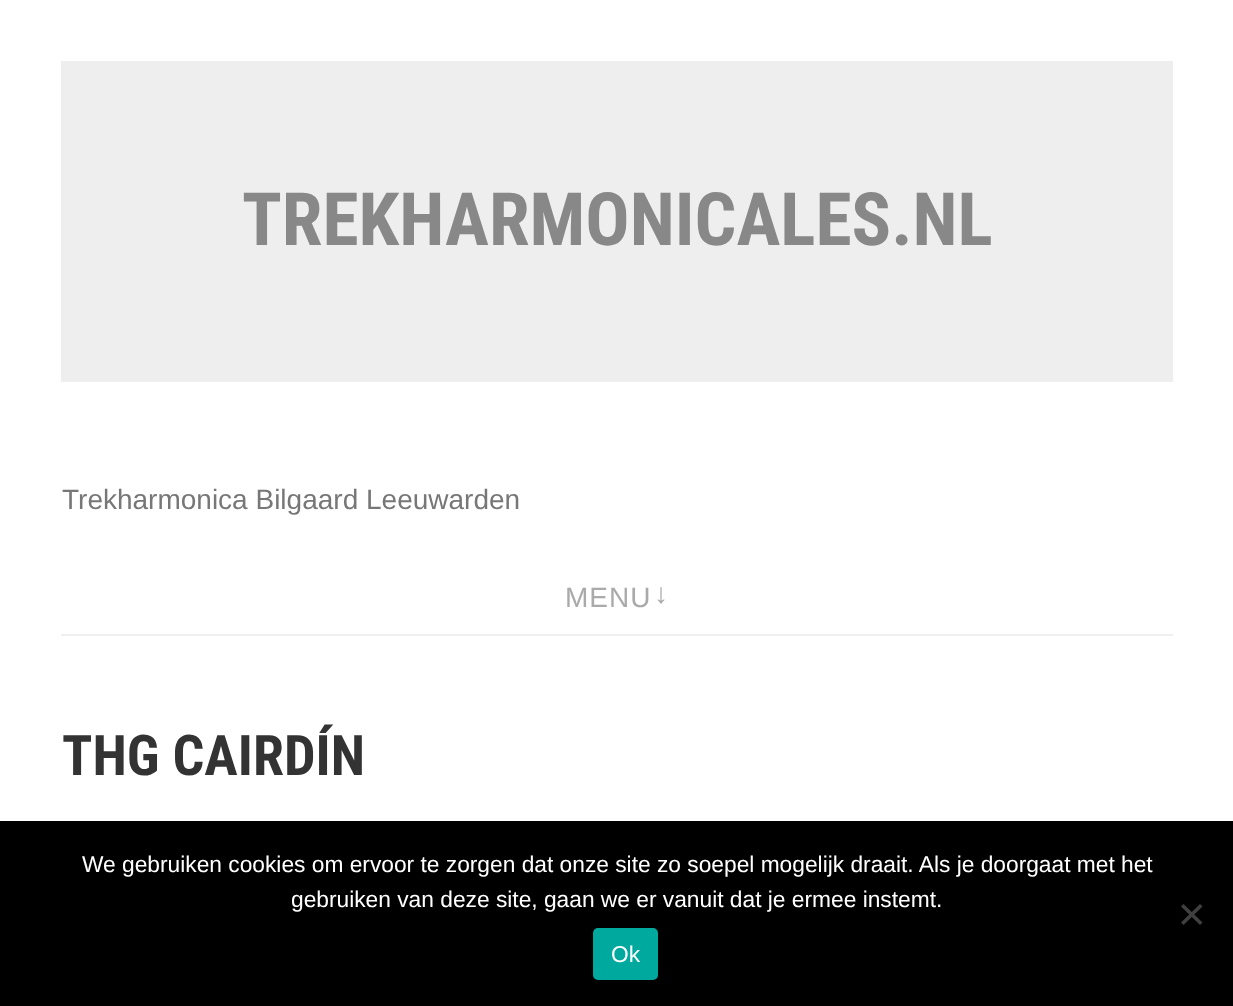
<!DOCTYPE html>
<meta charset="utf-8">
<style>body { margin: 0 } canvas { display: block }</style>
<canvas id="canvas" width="1233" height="1006"></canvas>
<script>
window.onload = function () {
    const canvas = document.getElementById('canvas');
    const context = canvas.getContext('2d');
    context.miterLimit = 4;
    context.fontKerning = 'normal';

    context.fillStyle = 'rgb(255, 255, 255)';
    context.fillRect(0, 0, 1233, 1006);
    context.fillStyle = 'rgb(238, 238, 238)';
    context.fillRect(61, 61, 1112, 321);
    context.fillStyle = 'rgb(240, 240, 240)';
    context.fillRect(61, 634, 1112, 2);
    context.fillStyle = 'rgb(0, 0, 0)';
    context.fillRect(0, 821, 1233, 185);
    context.fillStyle = 'rgb(64, 64, 64)';
    context.beginPath();
    context.moveTo(1200, 904);
    context.lineTo(1202.5, 906.5);
    context.lineTo(1183.5, 925);
    context.lineTo(1181, 922.5);
    context.closePath();
    context.fill();
    context.beginPath();
    context.moveTo(1181, 906.5);
    context.lineTo(1183.5, 904);
    context.lineTo(1202.5, 922.5);
    context.lineTo(1200, 925);
    context.closePath();
    context.fill();
    context.fillStyle = 'rgb(0, 169, 157)';
    context.beginPath();
    context.roundRect(593, 928, 65, 52, 5);
    context.fill();
    context.font = 'bold 73.5px Roboto Condensed';
    context.fillStyle = 'rgb(136, 136, 136)';
    context.fillText('TREKHARMONICALES.NL', 242, 245);
    context.font = '28px Arimo';
    context.fillStyle = 'rgb(119, 119, 119)';
    context.fillText('Trekharmonica Bilgaard Leeuwarden', 62, 509);
    context.letterSpacing = '1px';
    context.fillStyle = 'rgb(170, 170, 170)';
    context.fillText('MENU', 565, 607);
    context.fillText('↓', 654, 603);
    context.letterSpacing = '0px';
    context.font = 'bold 56px Roboto Condensed';
    context.fillStyle = 'rgb(51, 51, 51)';
    context.fillText('THG CAIRDÍN', 62, 775);
    context.font = '22.75px Liberation Sans';
    context.fillStyle = 'rgb(255, 255, 255)';
    context.fillText('We gebruiken cookies om ervoor te zorgen dat onze site zo soepel mogelijk draait. Als je doorgaat met het', 82, 872);
    context.fillText('gebruiken van deze site, gaan we er vanuit dat je ermee instemt.', 291, 907);
    context.fillText('Ok', 611, 962);
};
</script>
